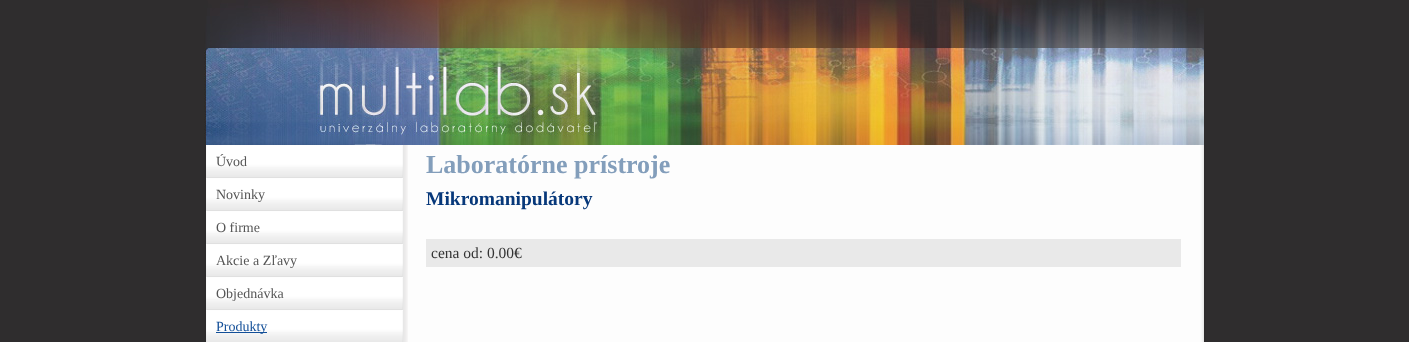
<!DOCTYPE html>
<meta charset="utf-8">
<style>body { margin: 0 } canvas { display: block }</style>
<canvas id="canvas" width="1409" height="342"></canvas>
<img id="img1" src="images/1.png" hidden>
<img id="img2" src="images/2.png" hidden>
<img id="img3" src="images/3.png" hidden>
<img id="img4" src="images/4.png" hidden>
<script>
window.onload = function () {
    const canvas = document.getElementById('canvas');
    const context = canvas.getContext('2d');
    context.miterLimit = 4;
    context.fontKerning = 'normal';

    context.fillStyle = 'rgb(47, 45, 46)';
    context.fillRect(0, 0, 1409, 342);
    context.drawImage(document.getElementById('img1'), 204, 0, 1000, 145);
    context.drawImage(document.getElementById('img2'), 204, 145, 1002, 197);
    context.drawImage(document.getElementById('img3'), 206, 145, 202, 33);
    context.drawImage(document.getElementById('img3'), 206, 178, 202, 33);
    context.drawImage(document.getElementById('img3'), 206, 211, 202, 33);
    context.drawImage(document.getElementById('img3'), 206, 244, 202, 33);
    context.drawImage(document.getElementById('img3'), 206, 277, 202, 33);
    context.drawImage(document.getElementById('img4'), 206, 310, 202, 32);
    context.fillStyle = 'rgb(19, 79, 152)';
    context.fillRect(216, 332, 51, 1);
    context.fillStyle = 'rgb(233, 233, 233)';
    context.fillRect(426, 239, 755, 28);
    context.font = '14px Liberation Serif';
    context.fillStyle = 'rgb(85, 85, 85)';
    context.fillText('Úvod', 216, 166);
    context.fillText('Novinky', 216, 199);
    context.fillText('O firme', 216, 232);
    context.fillText('Akcie a Zľavy', 216, 265);
    context.fillText('Objednávka', 216, 298);
    context.fillStyle = 'rgb(19, 79, 152)';
    context.fillText('Produkty', 216, 331);
    context.font = 'bold 26px Liberation Serif';
    context.fillStyle = 'rgb(131, 158, 187)';
    context.fillText('Laboratórne prístroje', 426, 173);
    context.font = 'bold 19.5px Liberation Serif';
    context.fillStyle = 'rgb(7, 56, 122)';
    context.fillText('Mikromanipulátory', 426, 205);
    context.font = '15.5px Liberation Serif';
    context.fillStyle = 'rgb(51, 51, 51)';
    context.fillText('cena od: 0.00€', 431, 258);
};
</script>
